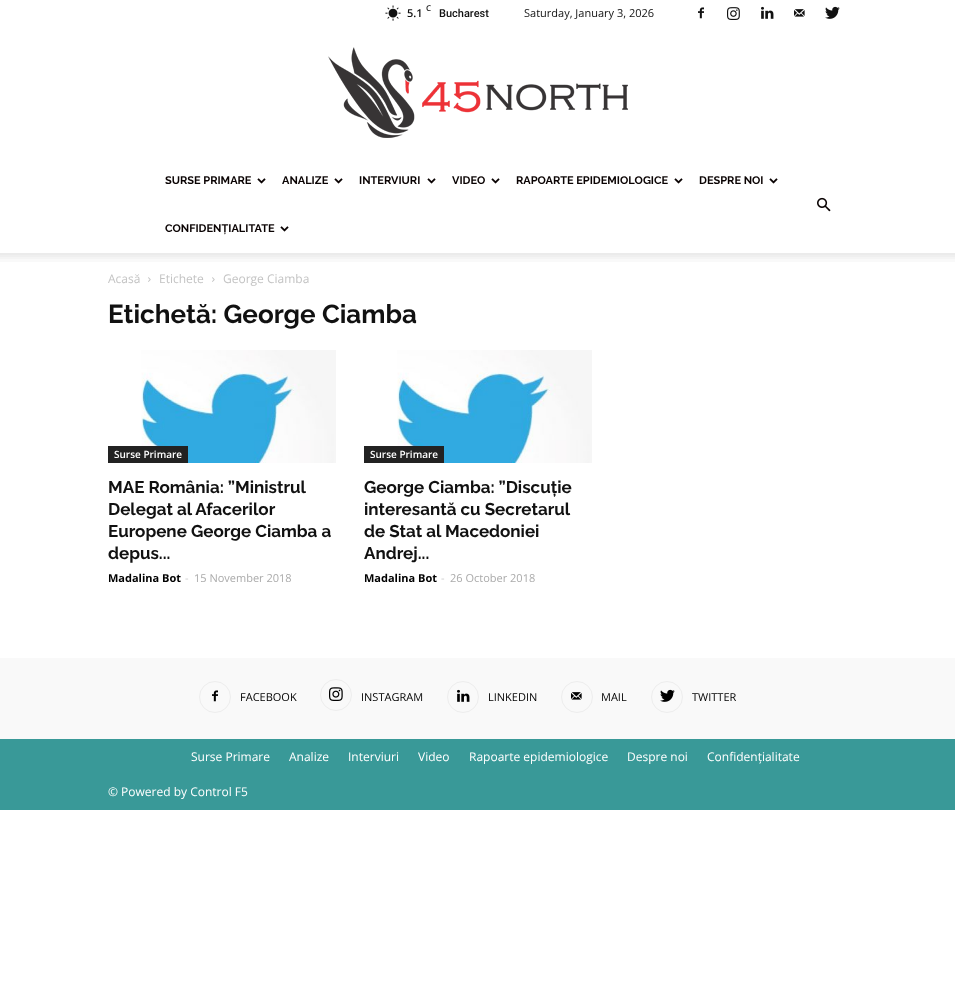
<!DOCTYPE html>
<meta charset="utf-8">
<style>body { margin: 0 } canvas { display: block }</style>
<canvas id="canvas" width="955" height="996"></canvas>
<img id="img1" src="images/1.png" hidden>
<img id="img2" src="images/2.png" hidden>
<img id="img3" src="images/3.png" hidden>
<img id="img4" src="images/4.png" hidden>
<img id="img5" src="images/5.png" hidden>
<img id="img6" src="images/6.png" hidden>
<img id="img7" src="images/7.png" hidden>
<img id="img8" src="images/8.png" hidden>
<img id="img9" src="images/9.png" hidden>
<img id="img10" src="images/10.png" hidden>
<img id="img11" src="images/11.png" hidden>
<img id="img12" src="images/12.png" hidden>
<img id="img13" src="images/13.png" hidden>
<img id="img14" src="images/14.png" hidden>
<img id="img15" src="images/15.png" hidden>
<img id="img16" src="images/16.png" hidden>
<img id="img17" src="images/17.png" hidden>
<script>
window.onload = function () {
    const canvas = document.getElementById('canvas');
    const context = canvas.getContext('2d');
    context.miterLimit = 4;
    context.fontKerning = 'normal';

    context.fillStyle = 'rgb(255, 255, 255)';
    context.fillRect(0, 0, 955, 996);
    context.drawImage(document.getElementById('img1'), 385, 5, 16, 16);
    context.drawImage(document.getElementById('img2'), 698, 7, 6, 12);
    context.drawImage(document.getElementById('img3'), 727, 7, 13, 13);
    context.drawImage(document.getElementById('img4'), 761, 6, 13, 13);
    context.drawImage(document.getElementById('img5'), 794, 9, 11, 8);
    context.drawImage(document.getElementById('img6'), 825, 6, 15, 13);
    context.drawImage(document.getElementById('img7'), 328, 47, 300, 91);
    context.drawImage(document.getElementById('img8'), 257, 178, 9, 6);
    context.drawImage(document.getElementById('img8'), 334, 178, 9, 6);
    context.drawImage(document.getElementById('img8'), 427, 178, 9, 6);
    context.drawImage(document.getElementById('img8'), 491, 178, 9, 6);
    context.drawImage(document.getElementById('img8'), 674, 178, 9, 6);
    context.drawImage(document.getElementById('img8'), 769, 178, 9, 6);
    context.drawImage(document.getElementById('img8'), 280, 226, 9, 6);
    context.drawImage(document.getElementById('img9'), 817, 197, 14, 15);
    context.drawImage(document.getElementById('img10'), 0, 253, 955, 9);
    context.drawImage(document.getElementById('img11'), 148, 277, 3, 5);
    context.drawImage(document.getElementById('img11'), 212, 277, 3, 5);
    context.drawImage(document.getElementById('img12'), 141, 350, 195, 113);
    context.fillStyle = 'rgb(34, 34, 34)';
    context.fillRect(108, 446, 80, 17);
    context.drawImage(document.getElementById('img12'), 397, 350, 195, 113);
    context.fillRect(364, 446, 80, 17);
    context.fillStyle = 'rgb(249, 249, 249)';
    context.fillRect(0, 658, 955, 81);
    context.drawImage(document.getElementById('img13'), 212, 690, 6, 12);
    context.beginPath();
    context.arc(215, 697, 15.5, 0, 2 * Math.PI);
    context.strokeStyle = 'rgb(237, 237, 237)';
    context.stroke();
    context.drawImage(document.getElementById('img14'), 329, 687, 14, 14);
    context.beginPath();
    context.arc(336, 695, 15.5, 0, 2 * Math.PI);
    context.stroke();
    context.drawImage(document.getElementById('img15'), 457, 689, 13, 13);
    context.beginPath();
    context.arc(463, 697, 15.5, 0, 2 * Math.PI);
    context.stroke();
    context.drawImage(document.getElementById('img16'), 571, 692, 11, 8);
    context.beginPath();
    context.arc(577, 697, 15.5, 0, 2 * Math.PI);
    context.stroke();
    context.drawImage(document.getElementById('img17'), 660, 689, 15, 13);
    context.beginPath();
    context.arc(667, 697, 15.5, 0, 2 * Math.PI);
    context.stroke();
    context.fillStyle = 'rgb(57, 153, 152)';
    context.fillRect(0, 739, 955, 71);
    context.font = '600 11px Open Sans';
    context.fillStyle = 'rgb(17, 17, 17)';
    context.fillText('5.1', 407, 17);
    context.font = '600 8px Open Sans';
    context.fillText('C', 426, 11);
    context.font = '500 11px Roboto';
    context.fillText('Bucharest', 439, 17);
    context.font = '11px Open Sans';
    context.fillText('Saturday, January 3, 2026', 524, 17);
    context.font = 'bold 11px Raleway';
    context.fillStyle = 'rgb(10, 3, 3)';
    context.fillText('SURSE PRIMARE', 165, 184);
    context.fillText('ANALIZE', 282, 184);
    context.fillText('INTERVIURI', 359, 184);
    context.fillText('VIDEO', 452, 184);
    context.fillText('RAPOARTE EPIDEMIOLOGICE', 516, 184);
    context.fillText('DESPRE NOI', 699, 184);
    context.fillText('CONFIDENȚIALITATE', 165, 232);
    context.font = '12px Open Sans';
    context.fillStyle = 'rgb(195, 195, 195)';
    context.fillText('Acasă', 108, 283);
    context.fillText('Etichete', 159, 283);
    context.fillText('George Ciamba', 223, 283);
    context.font = 'bold 26px Raleway';
    context.fillStyle = 'rgb(17, 17, 17)';
    context.fillText('Etichetă: George Ciamba', 108, 323);
    context.font = '600 10px Open Sans';
    context.fillStyle = 'rgb(255, 255, 255)';
    context.fillText('Surse Primare', 114, 458);
    context.font = 'bold 17px Raleway';
    context.fillStyle = 'rgb(17, 17, 17)';
    context.fillText('MAE România: ”Ministrul', 108, 493);
    context.fillText('Delegat al Afacerilor', 108, 515);
    context.fillText('Europene George Ciamba a', 108, 537);
    context.fillText('depus...', 108, 559);
    context.font = 'bold 11px Open Sans';
    context.fillStyle = 'rgb(0, 0, 0)';
    context.fillText('Madalina Bot', 108, 582);
    context.font = '11px Open Sans';
    context.fillStyle = 'rgb(204, 204, 204)';
    context.fillText('-', 185, 582);
    context.fillStyle = 'rgb(170, 170, 170)';
    context.fillText('15 November 2018', 194, 582);
    context.font = '600 10px Open Sans';
    context.fillStyle = 'rgb(255, 255, 255)';
    context.fillText('Surse Primare', 370, 458);
    context.font = 'bold 17px Raleway';
    context.fillStyle = 'rgb(17, 17, 17)';
    context.fillText('George Ciamba: ”Discuție', 364, 493);
    context.fillText('interesantă cu Secretarul', 364, 515);
    context.fillText('de Stat al Macedoniei', 364, 537);
    context.fillText('Andrej...', 364, 559);
    context.font = 'bold 11px Open Sans';
    context.fillStyle = 'rgb(0, 0, 0)';
    context.fillText('Madalina Bot', 364, 582);
    context.font = '11px Open Sans';
    context.fillStyle = 'rgb(204, 204, 204)';
    context.fillText('-', 441, 582);
    context.fillStyle = 'rgb(170, 170, 170)';
    context.fillText('26 October 2018', 450, 582);
    context.fillStyle = 'rgb(0, 0, 0)';
    context.fillText('FACEBOOK', 240, 701);
    context.fillText('INSTAGRAM', 361, 701);
    context.fillText('LINKEDIN', 488, 701);
    context.fillText('MAIL', 601, 701);
    context.fillText('TWITTER', 692, 701);
    context.font = '12px Open Sans';
    context.fillStyle = 'rgb(255, 255, 255)';
    context.fillText('Surse Primare', 191, 761);
    context.fillText('Analize', 289, 761);
    context.fillText('Interviuri', 348, 761);
    context.fillText('Video', 418, 761);
    context.fillText('Rapoarte epidemiologice', 469, 761);
    context.fillText('Despre noi', 627, 761);
    context.fillText('Confidențialitate', 707, 761);
    context.fillText('© Powered by Control F5', 108, 796);
};
</script>
